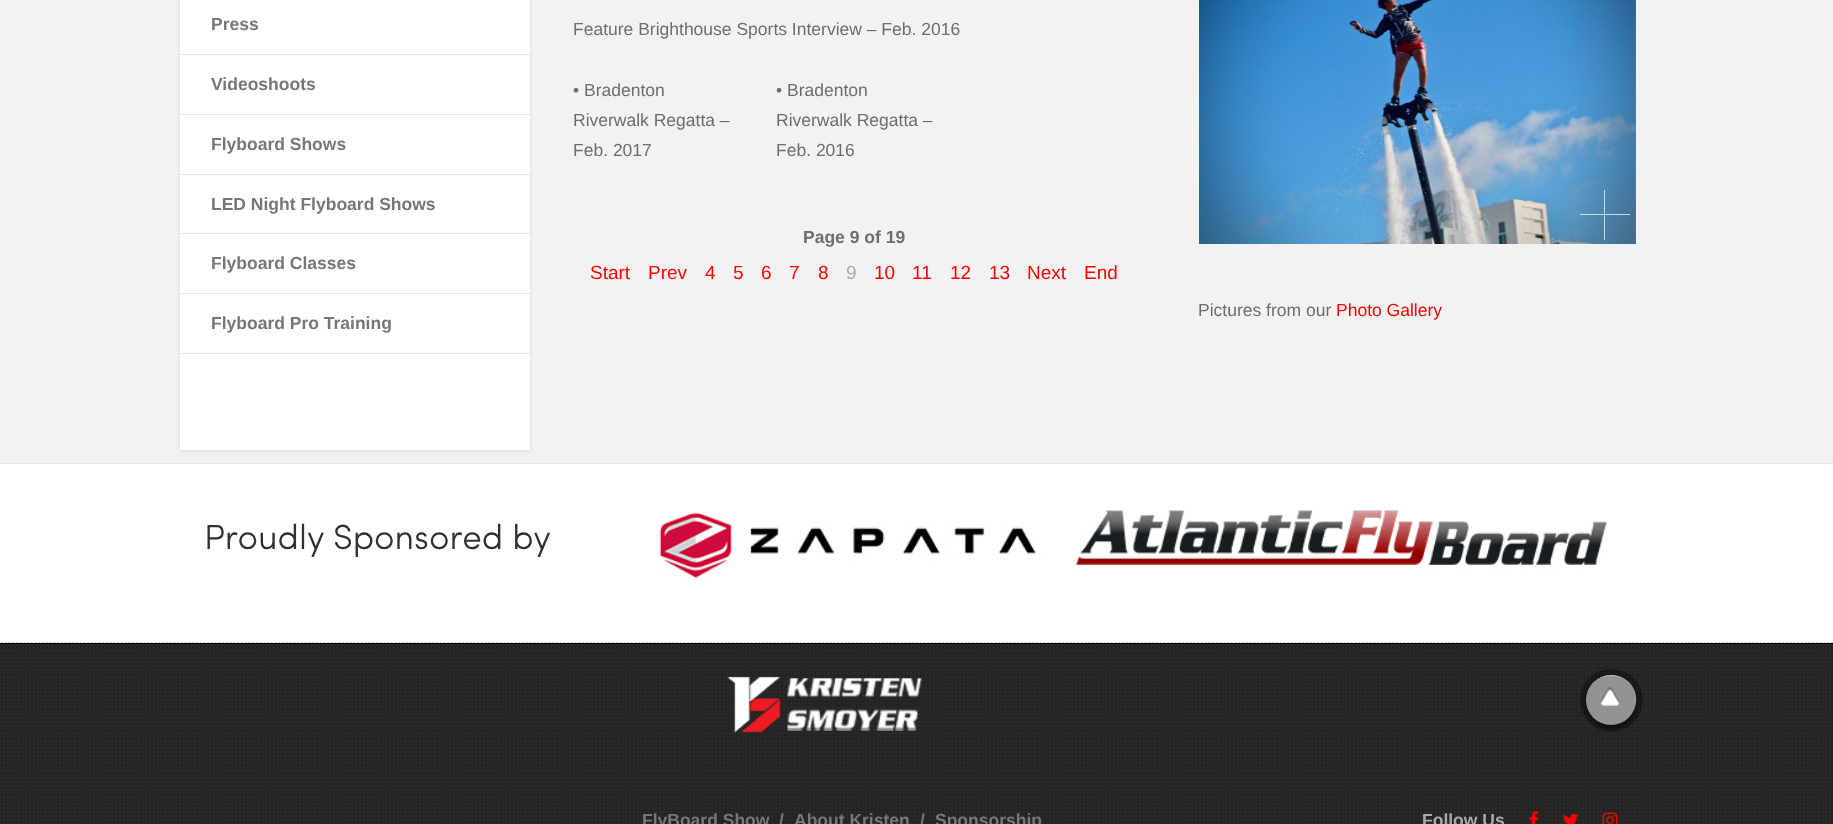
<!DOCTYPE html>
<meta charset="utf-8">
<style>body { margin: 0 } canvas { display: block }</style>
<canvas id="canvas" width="1833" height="824"></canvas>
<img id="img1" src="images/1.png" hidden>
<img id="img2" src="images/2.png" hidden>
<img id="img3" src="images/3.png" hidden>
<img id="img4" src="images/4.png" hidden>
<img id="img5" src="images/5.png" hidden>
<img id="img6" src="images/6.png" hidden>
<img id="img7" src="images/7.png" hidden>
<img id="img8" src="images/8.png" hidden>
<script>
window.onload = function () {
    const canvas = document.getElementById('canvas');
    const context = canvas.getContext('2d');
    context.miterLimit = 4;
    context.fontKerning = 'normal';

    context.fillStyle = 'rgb(242, 242, 242)';
    context.fillRect(0, 0, 1833, 824);
    context.fillStyle = 'rgba(0, 0, 0, 0.1)';
    context.filter = 'blur(2px)';
    context.beginPath();
    context.rect(180, -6, 350, 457);
    context.fill();
    context.filter = 'none';
    context.fillStyle = 'rgb(255, 255, 255)';
    context.fillRect(180, 0, 350, 450);
    context.fillStyle = 'rgb(229, 229, 229)';
    context.fillRect(180, 54, 350, 1);
    context.fillRect(180, 114, 350, 1);
    context.fillRect(180, 174, 350, 1);
    context.fillRect(180, 233, 350, 1);
    context.fillRect(180, 293, 350, 1);
    context.fillRect(180, 353, 350, 1);
    context.drawImage(document.getElementById('img1'), 1199, 0, 437, 244);
    context.fillStyle = 'rgba(255, 255, 255, 0.7)';
    context.fillRect(1604, 190, 1, 50);
    context.fillRect(1580, 214, 50, 1);
    context.fillStyle = 'rgb(255, 255, 255)';
    context.fillRect(0, 464, 1833, 179);
    context.fillStyle = 'rgb(229, 229, 229)';
    context.fillRect(0, 463, 1833, 1);
    context.drawImage(document.getElementById('img2'), 659, 510, 948, 69);
    context.fillStyle = 'rgb(45, 45, 45)';
    context.fillRect(0, 644, 1833, 180);
    context.drawImage(document.getElementById('img3'), 0, 642, 1833, 182);
    context.fillStyle = 'rgb(0, 0, 0)';
    context.fillRect(0, 643, 1833, 1);
    context.drawImage(document.getElementById('img4'), 727, 676, 195, 57);
    context.save();
    context.beginPath();
    context.moveTo(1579, 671);
    context.lineTo(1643, 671);
    context.lineTo(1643, 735);
    context.lineTo(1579, 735);
    context.closePath();
    context.moveTo(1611, 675);
    context.bezierCurveTo(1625, 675, 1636, 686, 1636, 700);
    context.bezierCurveTo(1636, 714, 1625, 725, 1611, 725);
    context.bezierCurveTo(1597, 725, 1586, 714, 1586, 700);
    context.bezierCurveTo(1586, 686, 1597, 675, 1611, 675);
    context.closePath();
    context.clip('evenodd');
    context.fillStyle = 'rgba(0, 0, 0, 0.5)';
    context.filter = 'blur(2px)';
    context.beginPath();
    context.roundRect(1586, 678, 50, 50, 25);
    context.fill();
    context.filter = 'none';
    context.restore();
    context.beginPath();
    context.roundRect(1583, 672, 57, 56, 28);
    context.strokeStyle = 'rgba(0, 0, 0, 0.3)';
    context.lineWidth = 6;
    context.stroke();
    context.fillStyle = 'rgba(255, 255, 255, 0.5)';
    context.beginPath();
    context.arc(1611, 700, 25, 0, 2 * Math.PI);
    context.fill();
    context.drawImage(document.getElementById('img5'), 1601, 687, 18, 19);
    context.fillStyle = 'rgba(225, 225, 225, 0.6)';
    context.beginPath();
    context.moveTo(1611, 676);
    context.bezierCurveTo(1630, 676, 1638, 692, 1635, 706);
    context.bezierCurveTo(1637, 699, 1636, 692, 1632, 686);
    context.bezierCurveTo(1616, 663, 1581, 679, 1587, 706);
    context.bezierCurveTo(1584, 692, 1592, 676, 1611, 676);
    context.closePath();
    context.fill();
    context.drawImage(document.getElementById('img6'), 1529, 811, 10, 13);
    context.drawImage(document.getElementById('img7'), 1563, 813, 16, 11);
    context.drawImage(document.getElementById('img8'), 1602, 812, 16, 12);
    context.font = 'bold 17.5px Liberation Sans';
    context.fillStyle = 'rgb(119, 119, 119)';
    context.fillText('Press', 211, 30);
    context.fillText('Videoshoots', 211, 90);
    context.fillText('Flyboard Shows', 211, 150);
    context.fillText('LED Night Flyboard Shows', 211, 210);
    context.fillText('Flyboard Classes', 211, 269);
    context.fillText('Flyboard Pro Training', 211, 329);
    context.font = '17.5px Liberation Sans';
    context.fillStyle = 'rgb(110, 110, 110)';
    context.fillText('Feature Brighthouse Sports Interview – Feb. 2016', 573, 35);
    context.fillText('• Bradenton', 573, 96);
    context.fillText('Riverwalk Regatta –', 573, 126);
    context.fillText('Feb. 2017', 573, 156);
    context.fillText('• Bradenton', 776, 96);
    context.fillText('Riverwalk Regatta –', 776, 126);
    context.fillText('Feb. 2016', 776, 156);
    context.font = 'bold 17.5px Liberation Sans';
    context.fillText('Page 9 of 19', 803, 243);
    context.font = '19px Liberation Sans';
    context.fillStyle = 'rgb(255, 0, 0)';
    context.fillText('Start', 590, 279);
    context.fillText('Prev', 648, 279);
    context.fillText('4', 705, 279);
    context.fillText('5', 733, 279);
    context.fillText('6', 761, 279);
    context.fillText('7', 789, 279);
    context.fillText('8', 818, 279);
    context.fillStyle = 'rgb(170, 170, 170)';
    context.fillText('9', 846, 279);
    context.fillStyle = 'rgb(255, 0, 0)';
    context.fillText('10', 874, 279);
    context.fillText('11', 912, 279);
    context.fillText('12', 950, 279);
    context.fillText('13', 989, 279);
    context.save();
    context.beginPath();
    context.roundRect(1028, 259, 38, 27, 4);
    context.clip();
    context.fillText('Next', 1027, 279);
    context.restore();
    context.fillText('End', 1084, 279);
    context.font = '17.5px Liberation Sans';
    context.fillStyle = 'rgb(110, 110, 110)';
    context.fillText('Pictures from our', 1198, 316);
    context.fillStyle = 'rgb(255, 0, 0)';
    context.fillText('Photo Gallery', 1336, 316);
    context.font = '35px Sofia';
    context.fillStyle = 'rgb(48, 48, 48)';
    context.fillText('Proudly Sponsored by', 204, 549);
    context.font = 'bold 17.5px Liberation Sans';
    context.fillStyle = 'rgb(119, 119, 119)';
    context.fillText('FlyBoard Show', 642, 826);
    context.fillText('/', 779, 826);
    context.fillText('About Kristen', 794, 826);
    context.fillText('/', 920, 826);
    context.fillText('Sponsorship', 935, 826);
    context.fillStyle = 'rgb(170, 170, 170)';
    context.fillText('Follow Us', 1422, 826);
};
</script>
